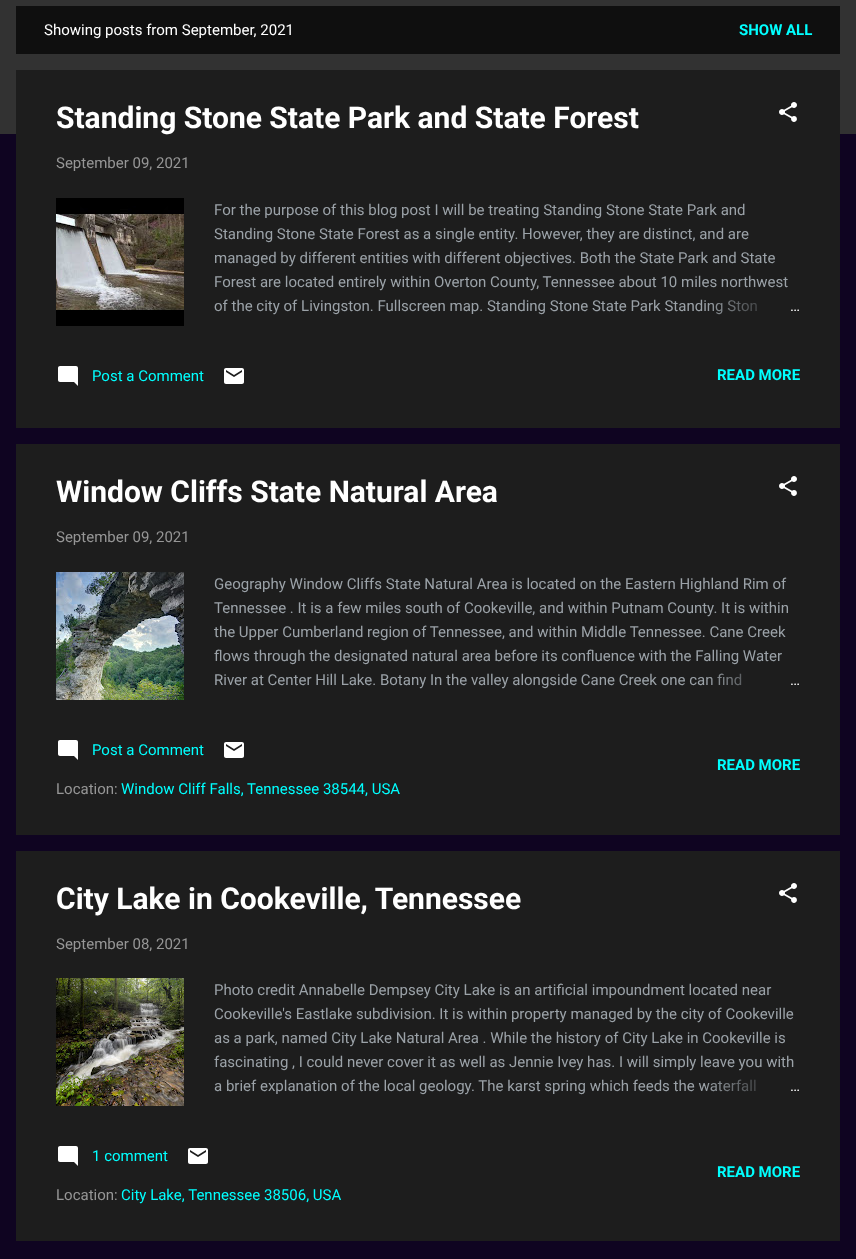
<!DOCTYPE html>
<meta charset="utf-8">
<style>body { margin: 0 } canvas { display: block }</style>
<canvas id="canvas" width="856" height="1259"></canvas>
<img id="img1" src="images/1.png" hidden>
<img id="img2" src="images/2.png" hidden>
<img id="img3" src="images/3.png" hidden>
<img id="img4" src="images/4.png" hidden>
<img id="img5" src="images/5.png" hidden>
<img id="img6" src="images/6.png" hidden>
<script>
window.onload = function () {
    const canvas = document.getElementById('canvas');
    const context = canvas.getContext('2d');
    context.miterLimit = 4;
    context.fontKerning = 'normal';
    let gradient;

    context.fillStyle = 'rgb(15, 4, 33)';
    context.fillRect(0, 0, 856, 1259);
    context.fillStyle = 'rgb(50, 50, 50)';
    context.fillRect(0, 0, 856, 134);
    context.fillStyle = 'rgb(15, 15, 15)';
    context.fillRect(16, 6, 824, 48);
    context.fillStyle = 'rgb(29, 29, 29)';
    context.fillRect(16, 70, 824, 358);
    context.drawImage(document.getElementById('img1'), 779, 102, 18, 20);
    context.drawImage(document.getElementById('img2'), 56, 198, 128, 128);
    context.drawImage(document.getElementById('img3'), 58, 366, 20, 20);
    context.drawImage(document.getElementById('img4'), 224, 368, 20, 16);
    context.fillRect(16, 444, 824, 391);
    context.drawImage(document.getElementById('img1'), 779, 476, 18, 20);
    context.drawImage(document.getElementById('img5'), 56, 572, 128, 128);
    context.drawImage(document.getElementById('img3'), 58, 740, 20, 20);
    context.drawImage(document.getElementById('img4'), 224, 742, 20, 16);
    context.fillRect(16, 851, 824, 390);
    context.drawImage(document.getElementById('img1'), 779, 883, 18, 20);
    context.drawImage(document.getElementById('img6'), 56, 978, 128, 128);
    context.drawImage(document.getElementById('img3'), 58, 1146, 20, 20);
    context.drawImage(document.getElementById('img4'), 188, 1148, 20, 16);
    context.font = '15px Roboto';
    context.fillStyle = 'rgb(255, 255, 255)';
    context.fillText('Showing posts from September, 2021', 44, 35);
    context.font = 'bold 15px Roboto';
    context.fillStyle = 'rgb(0, 255, 255)';
    context.fillText('SHOW ALL', 739, 35);
    context.font = 'bold 30px Roboto';
    context.fillStyle = 'rgb(255, 255, 255)';
    context.fillText('Standing Stone State Park and State Forest', 56, 128);
    context.font = '15px Roboto';
    context.fillStyle = 'rgb(150, 150, 150)';
    context.fillText('September 09, 2021', 56, 168);
    context.fillStyle = 'rgb(155, 162, 168)';
    context.fillText('For the purpose of this blog post I will be treating Standing Stone State Park and', 214, 215);
    context.fillText('Standing Stone State Forest as a single entity. However, they are distinct, and are', 214, 239);
    context.fillText('managed by different entities with different objectives. Both the State Park and State', 214, 263);
    context.fillText('Forest are located entirely within Overton County, Tennessee about 10 miles northwest', 214, 287);
    context.fillText('of the city of Livingston. Fullscreen map. Standing Stone State Park Standing Ston', 214, 311);
    gradient = context.createLinearGradient(800, 306, 704, 306);
    gradient.addColorStop(0, 'rgb(29, 29, 29)');
    gradient.addColorStop(0.2, 'rgb(29, 29, 29)');
    gradient.addColorStop(1, 'rgba(29, 29, 29, 0)');
    context.fillStyle = gradient;
    context.fillRect(708, 300, 49, 14);
    context.fillStyle = 'rgb(255, 255, 255)';
    context.fillText('…', 790, 311);
    context.fillStyle = 'rgb(0, 255, 255)';
    context.fillText('Post a Comment', 92, 381);
    context.font = 'bold 15px Roboto';
    context.fillText('READ MORE', 717, 380);
    context.font = 'bold 30px Roboto';
    context.fillStyle = 'rgb(255, 255, 255)';
    context.fillText('Window Cliffs State Natural Area', 56, 502);
    context.font = '15px Roboto';
    context.fillStyle = 'rgb(150, 150, 150)';
    context.fillText('September 09, 2021', 56, 542);
    context.fillStyle = 'rgb(155, 162, 168)';
    context.fillText('Geography Window Cliffs State Natural Area is located on the Eastern Highland Rim of', 214, 589);
    context.fillText('Tennessee . It is a few miles south of Cookeville, and within Putnam County. It is within', 214, 613);
    context.fillText('the Upper Cumberland region of Tennessee, and within Middle Tennessee. Cane Creek', 214, 637);
    context.fillText('flows through the designated natural area before its confluence with the Falling Water', 214, 661);
    context.fillText('River at Center Hill Lake. Botany In the valley alongside Cane Creek one can find', 214, 685);
    gradient = context.createLinearGradient(800, 680, 704, 680);
    gradient.addColorStop(0, 'rgb(29, 29, 29)');
    gradient.addColorStop(0.2, 'rgb(29, 29, 29)');
    gradient.addColorStop(1, 'rgba(29, 29, 29, 0)');
    context.fillStyle = gradient;
    context.fillRect(706, 673, 36, 13);
    context.fillStyle = 'rgb(255, 255, 255)';
    context.fillText('…', 790, 685);
    context.fillStyle = 'rgb(0, 255, 255)';
    context.fillText('Post a Comment', 92, 755);
    context.fillStyle = 'rgb(150, 150, 150)';
    context.fillText('Location:', 56, 794);
    context.fillStyle = 'rgb(0, 255, 255)';
    context.fillText('Window Cliff Falls, Tennessee 38544, USA', 121, 794);
    context.font = 'bold 15px Roboto';
    context.fillText('READ MORE', 717, 770);
    context.font = 'bold 30px Roboto';
    context.fillStyle = 'rgb(255, 255, 255)';
    context.fillText('City Lake in Cookeville, Tennessee', 56, 909);
    context.font = '15px Roboto';
    context.fillStyle = 'rgb(150, 150, 150)';
    context.fillText('September 08, 2021', 56, 949);
    context.fillStyle = 'rgb(155, 162, 168)';
    context.fillText('Photo credit Annabelle Dempsey City Lake is an artificial impoundment located near', 214, 995);
    context.fillText('Cookeville\'s Eastlake subdivision. It is within property managed by the city of Cookeville', 214, 1019);
    context.fillText('as a park, named City Lake Natural Area . While the history of City Lake in Cookeville is', 214, 1043);
    context.fillText('fascinating , I could never cover it as well as Jennie Ivey has. I will simply leave you with', 214, 1067);
    context.fillText('a brief explanation of the local geology. The karst spring which feeds the waterfall', 214, 1091);
    gradient = context.createLinearGradient(800, 1086, 704, 1086);
    gradient.addColorStop(0, 'rgb(29, 29, 29)');
    gradient.addColorStop(0.2, 'rgb(29, 29, 29)');
    gradient.addColorStop(1, 'rgba(29, 29, 29, 0)');
    context.fillStyle = gradient;
    context.fillRect(706, 1079, 50, 13);
    context.fillStyle = 'rgb(255, 255, 255)';
    context.fillText('…', 790, 1091);
    context.fillStyle = 'rgb(0, 255, 255)';
    context.fillText('1 comment', 92, 1161);
    context.fillStyle = 'rgb(150, 150, 150)';
    context.fillText('Location:', 56, 1200);
    context.fillStyle = 'rgb(0, 255, 255)';
    context.fillText('City Lake, Tennessee 38506, USA', 121, 1200);
    context.font = 'bold 15px Roboto';
    context.fillText('READ MORE', 717, 1177);
};
</script>
